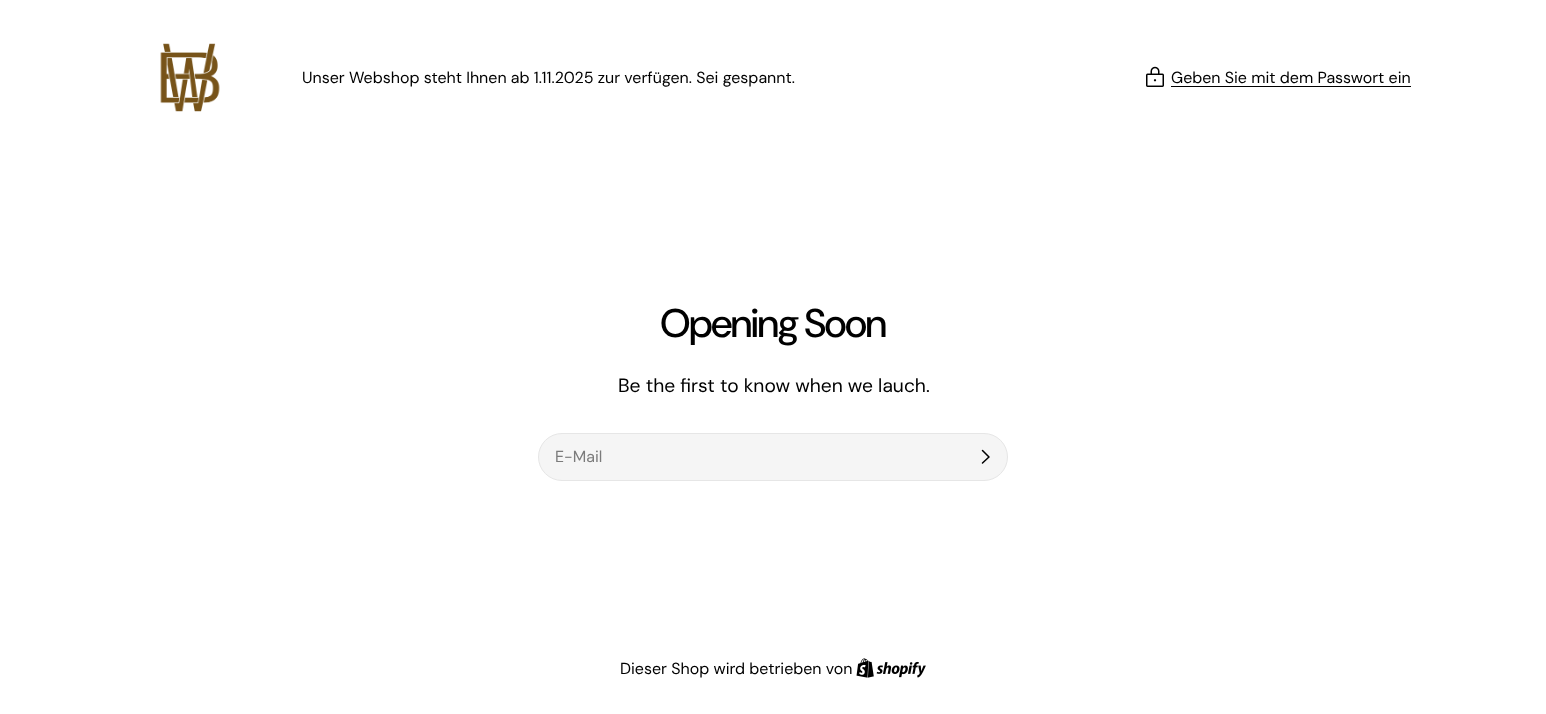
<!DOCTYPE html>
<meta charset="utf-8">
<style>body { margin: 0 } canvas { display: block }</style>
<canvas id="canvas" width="1546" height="714"></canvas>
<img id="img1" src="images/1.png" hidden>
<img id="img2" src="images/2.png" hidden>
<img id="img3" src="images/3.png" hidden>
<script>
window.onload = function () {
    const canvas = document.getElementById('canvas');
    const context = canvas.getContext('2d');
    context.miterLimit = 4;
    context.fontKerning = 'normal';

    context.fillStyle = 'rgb(255, 255, 255)';
    context.fillRect(0, 0, 1546, 714);
    context.drawImage(document.getElementById('img1'), 160, 43, 60, 69);
    context.drawImage(document.getElementById('img2'), 1146, 66, 18, 21);
    context.fillStyle = 'rgb(0, 0, 0)';
    context.fillRect(1171, 86, 240, 1);
    context.fillStyle = 'rgb(245, 245, 245)';
    context.beginPath();
    context.roundRect(538.5, 433.5, 469, 47, 23.5);
    context.fill();
    context.strokeStyle = 'rgb(230, 230, 230)';
    context.stroke();
    context.beginPath();
    context.moveTo(982.5, 450.5);
    context.lineTo(989, 457);
    context.lineTo(982.5, 463);
    context.strokeStyle = 'rgb(0, 0, 0)';
    context.lineWidth = 1.5;
    context.lineCap = 'round';
    context.lineJoin = 'round';
    context.stroke();
    context.drawImage(document.getElementById('img3'), 856, 658, 70, 20);
    context.font = '16px DM Sans';
    context.fillStyle = 'rgb(0, 0, 0)';
    context.fillText('Unser Webshop steht Ihnen ab 1.11.2025 zur verfügen. Sei gespannt.', 302, 83);
    context.fillText('Geben Sie mit dem Passwort ein', 1171, 83);
    context.letterSpacing = '-1.6px';
    context.font = '500 40px DM Sans';
    context.fillText('Opening Soon', 660, 337);
    context.letterSpacing = '0px';
    context.font = '19.25px "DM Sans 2"';
    context.fillText('Be the first to know when we lauch.', 618, 392);
    context.font = '16px DM Sans';
    context.fillStyle = 'rgb(123, 123, 123)';
    context.fillText('E-Mail', 555, 462);
    context.fillStyle = 'rgb(0, 0, 0)';
    context.fillText('Dieser Shop wird betrieben von', 620, 674);
};
</script>
